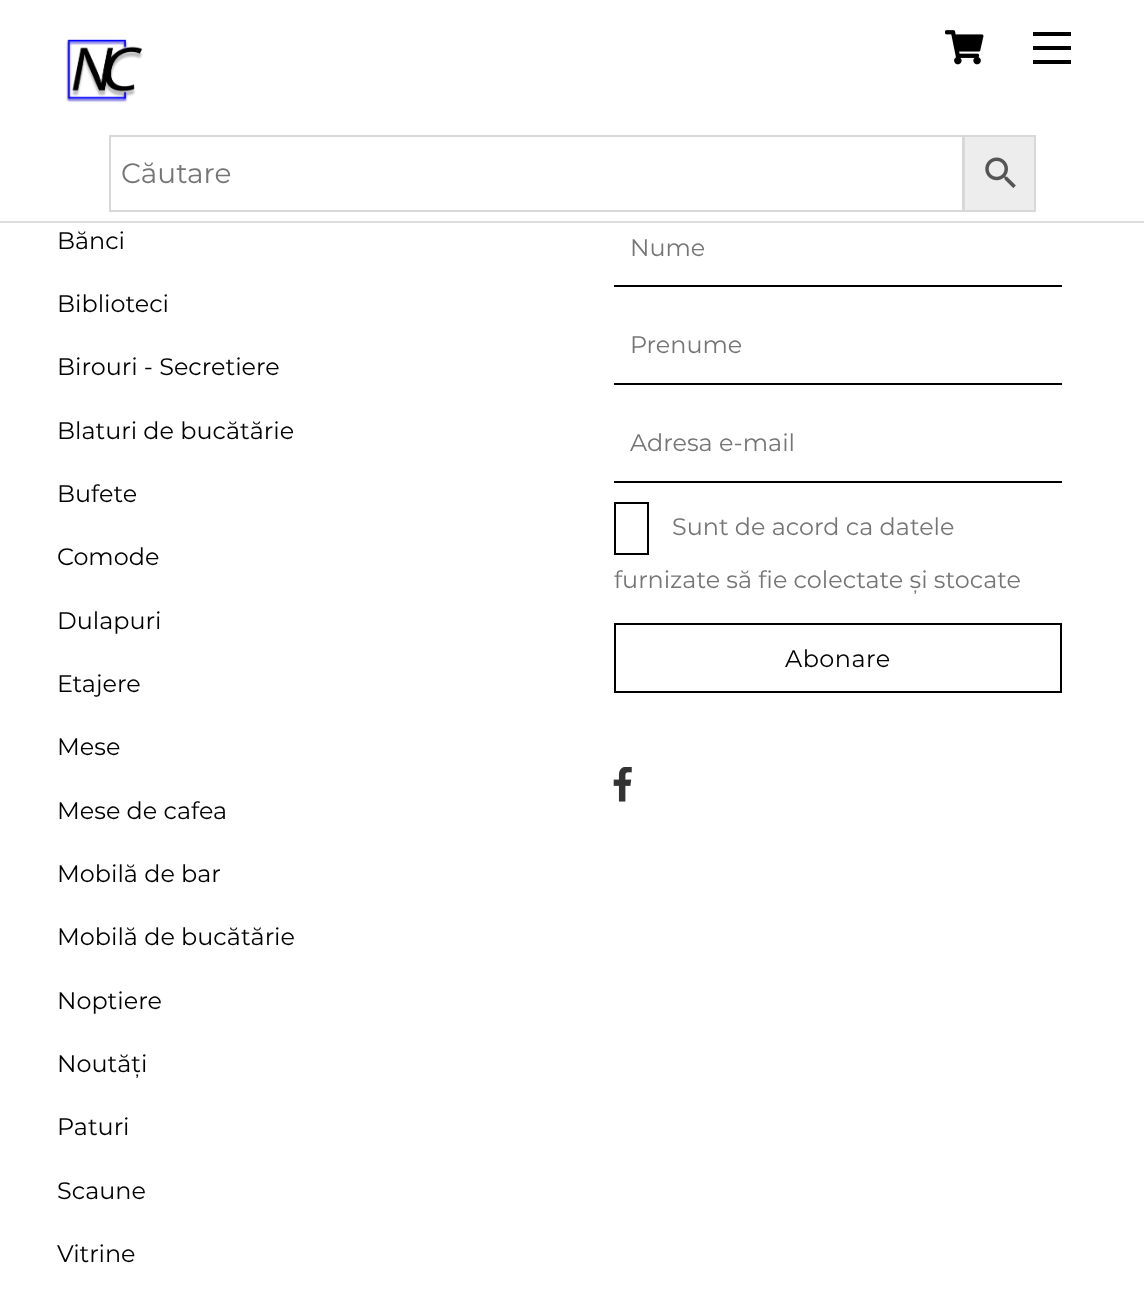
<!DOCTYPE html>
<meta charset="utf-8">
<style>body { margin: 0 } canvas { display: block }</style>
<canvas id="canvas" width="1144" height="1299"></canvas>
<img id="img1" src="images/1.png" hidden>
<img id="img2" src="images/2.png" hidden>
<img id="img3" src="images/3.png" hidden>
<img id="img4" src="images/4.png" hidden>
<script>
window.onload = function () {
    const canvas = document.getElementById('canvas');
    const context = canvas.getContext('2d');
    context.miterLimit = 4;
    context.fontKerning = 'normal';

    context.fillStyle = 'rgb(255, 255, 255)';
    context.fillRect(0, 0, 1144, 1299);
    context.fillStyle = 'rgb(221, 221, 221)';
    context.fillRect(0, 221, 1144, 2);
    context.drawImage(document.getElementById('img1'), 945, 30, 39, 35);
    context.fillStyle = 'rgb(0, 0, 0)';
    context.fillRect(1033, 60, 38, 4);
    context.fillRect(1033, 32, 38, 4);
    context.fillRect(1033, 46, 38, 4);
    context.drawImage(document.getElementById('img2'), 66, 39, 77, 64);
    context.fillStyle = 'rgb(237, 237, 237)';
    context.beginPath();
    context.rect(964, 136, 71, 75);
    context.fill();
    context.strokeStyle = 'rgb(216, 216, 216)';
    context.lineWidth = 2;
    context.stroke();
    context.strokeRect(110, 136, 853, 75);
    context.drawImage(document.getElementById('img3'), 985, 157, 31, 31);
    context.fillStyle = 'rgb(0, 0, 0)';
    context.fillRect(614, 285, 448, 2);
    context.fillRect(614, 383, 448, 2);
    context.fillRect(614, 481, 448, 2);
    context.strokeStyle = 'rgb(0, 0, 0)';
    context.strokeRect(615, 503, 33, 51);
    context.strokeRect(615, 624, 446, 68);
    context.drawImage(document.getElementById('img4'), 613, 767, 19, 35);
    context.font = '28px Montserrat';
    context.fillStyle = 'rgb(117, 117, 117)';
    context.fillText('Căutare', 121, 183);
    context.font = '23.9px Montserrat';
    context.fillStyle = 'rgb(0, 0, 0)';
    context.fillText('Bănci', 57, 249);
    context.fillText('Biblioteci', 57, 312);
    context.fillText('Birouri - Secretiere', 57, 375);
    context.fillText('Blaturi de bucătărie', 57, 439);
    context.fillText('Bufete', 57, 502);
    context.fillText('Comode', 57, 565);
    context.fillText('Dulapuri', 57, 629);
    context.fillText('Etajere', 57, 692);
    context.fillText('Mese', 57, 755);
    context.fillText('Mese de cafea', 57, 819);
    context.fillText('Mobilă de bar', 57, 882);
    context.fillText('Mobilă de bucătărie', 57, 945);
    context.fillText('Noptiere', 57, 1009);
    context.fillText('Noutăți', 57, 1072);
    context.fillText('Paturi', 57, 1135);
    context.fillText('Scaune', 57, 1199);
    context.fillText('Vitrine', 57, 1262);
    context.fillStyle = 'rgb(117, 117, 117)';
    context.fillText('Nume', 630, 256);
    context.fillText('Prenume', 630, 353);
    context.fillText('Adresa e-mail', 630, 451);
    context.fillText('Sunt de acord ca datele', 672, 535);
    context.fillText('furnizate să fie colectate și stocate', 614, 588);
    context.letterSpacing = '0.5px';
    context.fillStyle = 'rgb(0, 0, 0)';
    context.fillText('Abonare', 785, 667);
};
</script>
